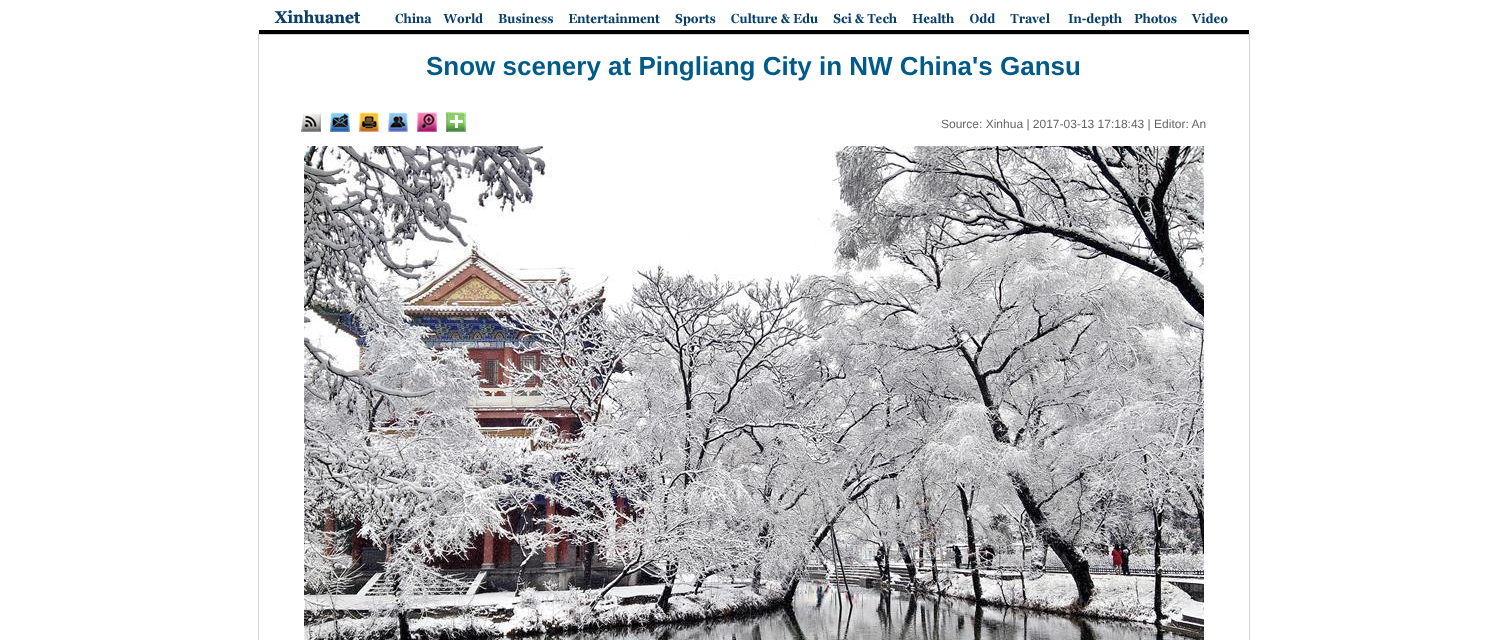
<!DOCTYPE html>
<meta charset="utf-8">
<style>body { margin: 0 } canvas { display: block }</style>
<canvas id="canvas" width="1507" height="640"></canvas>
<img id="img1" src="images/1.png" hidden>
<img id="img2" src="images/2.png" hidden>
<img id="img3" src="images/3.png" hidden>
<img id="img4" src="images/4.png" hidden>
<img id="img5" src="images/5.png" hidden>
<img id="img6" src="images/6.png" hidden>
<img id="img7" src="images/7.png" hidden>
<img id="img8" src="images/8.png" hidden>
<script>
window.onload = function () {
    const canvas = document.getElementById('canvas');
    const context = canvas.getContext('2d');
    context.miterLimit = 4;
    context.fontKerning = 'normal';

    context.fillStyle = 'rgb(255, 255, 255)';
    context.fillRect(0, 0, 1507, 640);
    context.fillStyle = 'rgb(0, 0, 0)';
    context.fillRect(259, 30, 990, 4);
    context.drawImage(document.getElementById('img1'), 259, 0, 990, 30);
    context.strokeStyle = 'rgb(211, 212, 207)';
    context.strokeRect(258.5, 34.5, 991, 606);
    context.drawImage(document.getElementById('img2'), 301, 114, 20, 18);
    context.drawImage(document.getElementById('img3'), 330, 112, 20, 20);
    context.drawImage(document.getElementById('img4'), 359, 112, 20, 20);
    context.drawImage(document.getElementById('img5'), 388, 112, 20, 20);
    context.drawImage(document.getElementById('img6'), 417, 112, 20, 20);
    context.drawImage(document.getElementById('img7'), 446, 112, 20, 20);
    context.drawImage(document.getElementById('img8'), 304, 146, 900, 494);
    context.font = 'bold 26px Liberation Sans';
    context.fillStyle = 'rgb(0, 91, 138)';
    context.fillText('Snow scenery at Pingliang City in NW China\'s Gansu', 426, 75);
    context.font = '12px Liberation Sans';
    context.fillStyle = 'rgb(102, 102, 102)';
    context.fillText('Source: Xinhua | 2017-03-13 17:18:43 | Editor: An', 941, 128);
};
</script>
